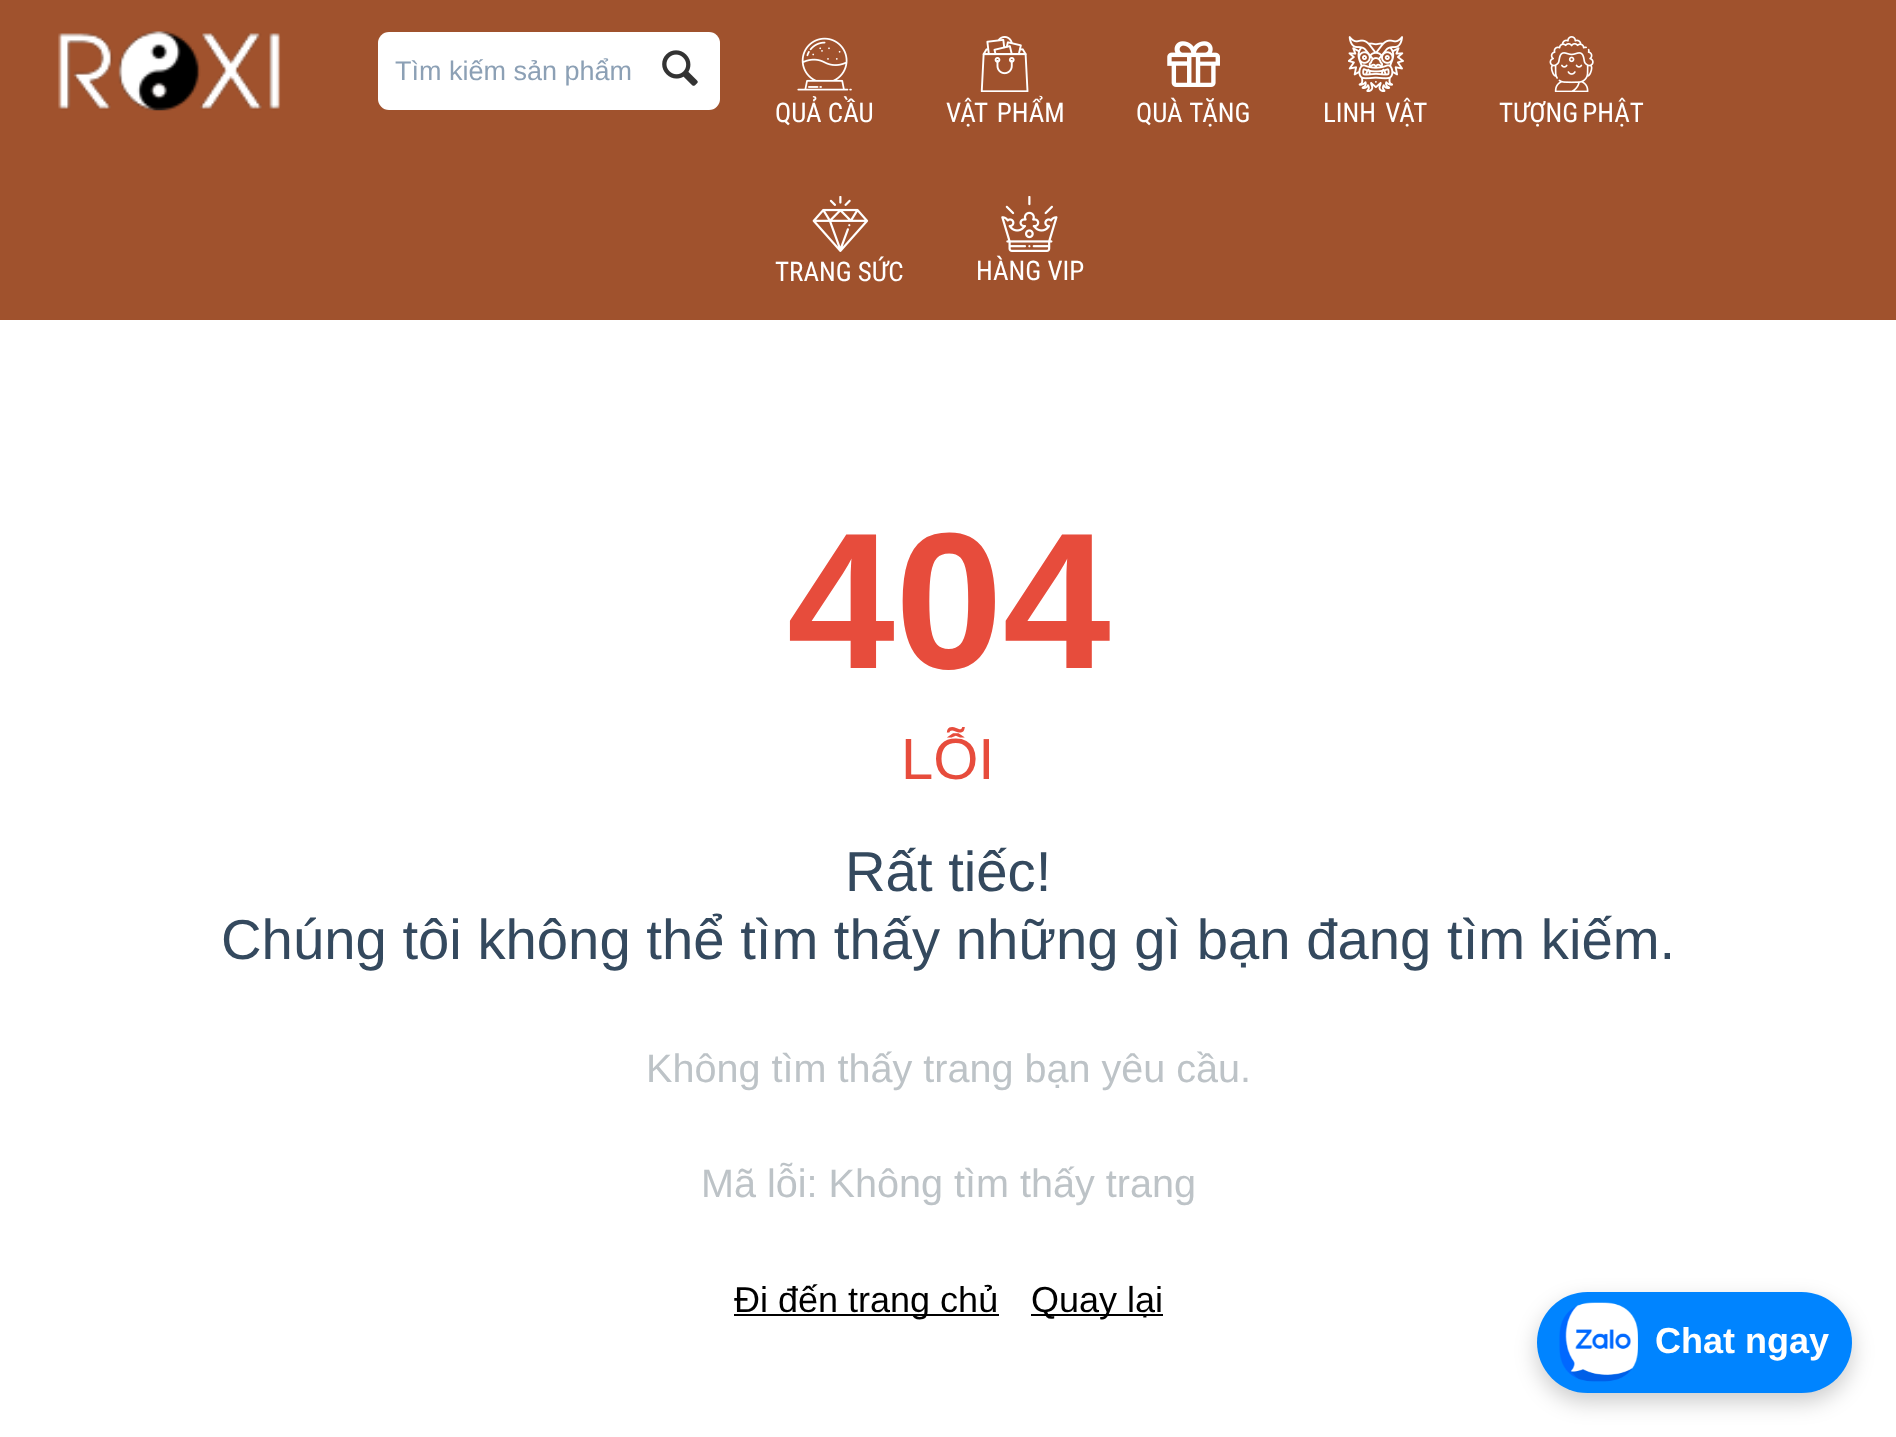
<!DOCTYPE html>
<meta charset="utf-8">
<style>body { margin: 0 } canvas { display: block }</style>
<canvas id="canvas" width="1896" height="1437"></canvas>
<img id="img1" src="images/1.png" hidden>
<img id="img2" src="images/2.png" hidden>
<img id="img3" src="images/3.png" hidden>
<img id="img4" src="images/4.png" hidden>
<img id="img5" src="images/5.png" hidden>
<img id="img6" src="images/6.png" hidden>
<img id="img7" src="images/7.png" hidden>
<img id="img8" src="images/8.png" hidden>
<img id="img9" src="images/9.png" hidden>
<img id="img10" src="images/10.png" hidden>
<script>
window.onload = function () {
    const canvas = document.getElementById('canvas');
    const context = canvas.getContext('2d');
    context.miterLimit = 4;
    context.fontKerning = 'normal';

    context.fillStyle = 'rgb(255, 255, 255)';
    context.fillRect(0, 0, 1896, 1437);
    context.fillStyle = 'rgb(160, 82, 45)';
    context.fillRect(0, 0, 1896, 320);
    context.drawImage(document.getElementById('img1'), 58, 31, 223, 80);
    context.fillStyle = 'rgb(255, 255, 255)';
    context.beginPath();
    context.roundRect(378, 32, 342, 78, 11);
    context.fill();
    context.drawImage(document.getElementById('img2'), 662, 50, 36, 36);
    context.drawImage(document.getElementById('img3'), 797, 37, 55, 54);
    context.drawImage(document.getElementById('img4'), 980, 36, 49, 56);
    context.drawImage(document.getElementById('img5'), 1167, 41, 53, 46);
    context.drawImage(document.getElementById('img6'), 1348, 36, 56, 56);
    context.drawImage(document.getElementById('img7'), 1549, 36, 45, 56);
    context.drawImage(document.getElementById('img8'), 812, 196, 57, 56);
    context.drawImage(document.getElementById('img9'), 1001, 196, 57, 56);
    context.fillStyle = 'rgb(0, 0, 0)';
    context.fillRect(734, 1314, 265, 2);
    context.fillRect(1031, 1314, 132, 2);
    context.fillStyle = 'rgba(0, 0, 0, 0.2)';
    context.filter = 'blur(11px)';
    context.beginPath();
    context.roundRect(1537, 1301, 315, 101, 50.5);
    context.fill();
    context.filter = 'none';
    context.fillStyle = 'rgb(0, 132, 255)';
    context.beginPath();
    context.roundRect(1537, 1292, 315, 101, 50.5);
    context.fill();
    context.drawImage(document.getElementById('img10'), 1559, 1302, 79, 80);
    context.font = '27px Liberation Sans';
    context.fillStyle = 'rgb(140, 160, 181)';
    context.fillText('Tìm kiếm sản phẩm', 395, 80);
    context.font = '27px Roboto Condensed';
    context.fillStyle = 'rgb(255, 255, 255)';
    context.fillText('QUẢ CẦU', 775, 122);
    context.wordSpacing = '3px';
    context.fillText('VẬT PHẨM', 946, 122);
    context.wordSpacing = '1px';
    context.fillText('QUÀ TẶNG', 1136, 122);
    context.wordSpacing = '3px';
    context.fillText('LINH VẬT', 1323, 122);
    context.wordSpacing = '-2px';
    context.fillText('TƯỢNG PHẬT', 1499, 122);
    context.wordSpacing = '0px';
    context.fillText('TRANG SỨC', 775, 281);
    context.fillText('HÀNG VIP', 976, 280);
    context.font = 'bold 194px Liberation Sans';
    context.fillStyle = 'rgb(231, 76, 60)';
    context.fillText('404', 787, 668);
    context.font = '58px Liberation Sans';
    context.fillText('LỖI', 901, 779);
    context.font = '56.25px Liberation Sans';
    context.fillStyle = 'rgb(52, 73, 94)';
    context.fillText('Rất tiếc!', 845, 891);
    context.fillText('Chúng tôi không thể tìm thấy những gì bạn đang tìm kiếm.', 221, 959);
    context.font = '39.6px Liberation Sans';
    context.fillStyle = 'rgb(189, 195, 199)';
    context.fillText('Không tìm thấy trang bạn yêu cầu.', 646, 1082);
    context.fillText('Mã lỗi: Không tìm thấy trang', 701, 1197);
    context.font = '36px Liberation Sans';
    context.fillStyle = 'rgb(0, 0, 0)';
    context.fillText('Đi đến trang chủ', 734, 1312);
    context.fillText('Quay lại', 1031, 1312);
    context.font = 'bold 36px Liberation Sans';
    context.fillStyle = 'rgb(255, 255, 255)';
    context.fillText('Chat ngay', 1655, 1353);
};
</script>
